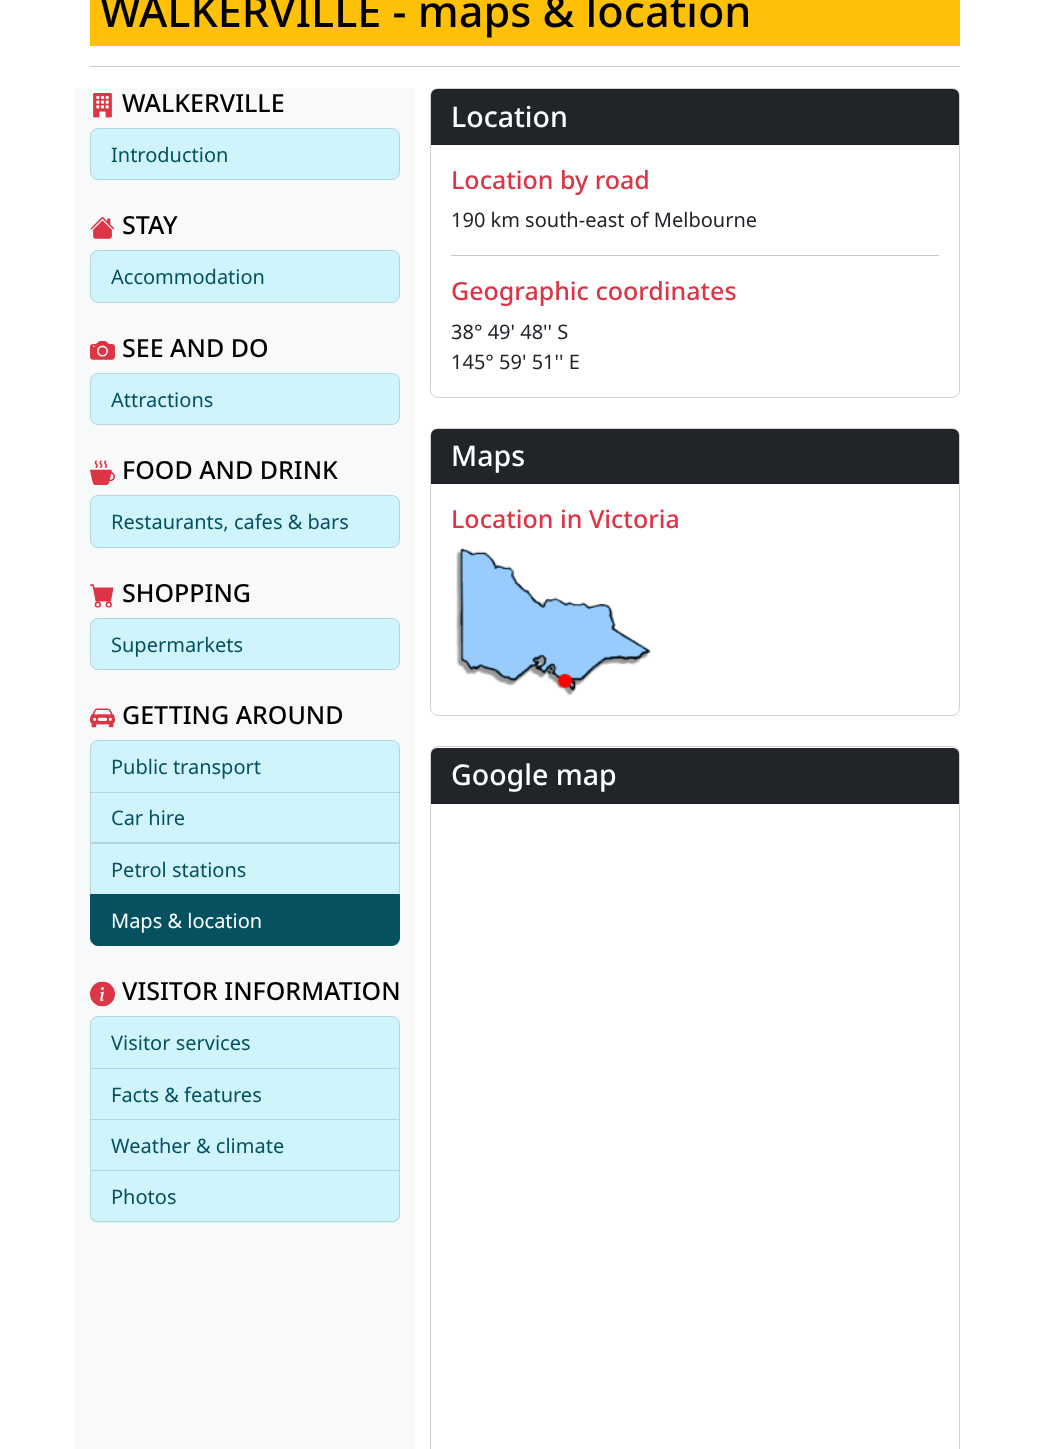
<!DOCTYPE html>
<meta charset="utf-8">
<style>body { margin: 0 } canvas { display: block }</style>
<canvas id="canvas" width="1049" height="1449"></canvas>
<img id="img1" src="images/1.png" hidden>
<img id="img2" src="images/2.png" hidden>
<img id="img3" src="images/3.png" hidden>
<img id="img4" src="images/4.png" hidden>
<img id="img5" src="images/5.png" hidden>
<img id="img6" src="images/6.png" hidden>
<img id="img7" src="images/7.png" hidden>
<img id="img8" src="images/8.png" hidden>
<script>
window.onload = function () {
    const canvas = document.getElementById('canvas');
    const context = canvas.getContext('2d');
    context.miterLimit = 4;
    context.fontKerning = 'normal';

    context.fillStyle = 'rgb(255, 255, 255)';
    context.fillRect(0, 0, 1049, 1449);
    context.fillStyle = 'rgb(255, 193, 7)';
    context.fillRect(90, 0, 870, 46);
    context.fillStyle = 'rgb(200, 201, 202)';
    context.fillRect(90, 66, 870, 1);
    context.fillStyle = 'rgb(248, 249, 250)';
    context.fillRect(75, 88, 340, 1361);
    context.drawImage(document.getElementById('img1'), 93, 93, 19, 25);
    context.fillStyle = 'rgb(207, 244, 252)';
    context.beginPath();
    context.roundRect(90, 128, 310, 52, 8);
    context.fill();
    context.beginPath();
    context.roundRect(90.5, 128.5, 309, 51, 7.5);
    context.strokeStyle = 'rgba(0, 0, 0, 0.12)';
    context.stroke();
    context.drawImage(document.getElementById('img2'), 90, 217, 25, 22);
    context.beginPath();
    context.roundRect(90, 250, 310, 53, 8);
    context.fill();
    context.beginPath();
    context.roundRect(90.5, 250.5, 309, 52, 7.5);
    context.stroke();
    context.drawImage(document.getElementById('img3'), 90, 341, 25, 19);
    context.beginPath();
    context.roundRect(90, 373, 310, 52, 8);
    context.fill();
    context.beginPath();
    context.roundRect(90.5, 373.5, 309, 51, 7.5);
    context.stroke();
    context.drawImage(document.getElementById('img4'), 90, 460, 25, 25);
    context.beginPath();
    context.roundRect(90, 495, 310, 53, 8);
    context.fill();
    context.beginPath();
    context.roundRect(90.5, 495.5, 309, 52, 7.5);
    context.stroke();
    context.drawImage(document.getElementById('img5'), 90, 584, 24, 24);
    context.beginPath();
    context.roundRect(90, 618, 310, 52, 8);
    context.fill();
    context.beginPath();
    context.roundRect(90.5, 618.5, 309, 51, 7.5);
    context.stroke();
    context.drawImage(document.getElementById('img6'), 90, 708, 25, 20);
    context.beginPath();
    context.roundRect(90, 740, 310, 53, [8, 8, 0, 0]);
    context.fill();
    context.beginPath();
    context.roundRect(90.5, 740.5, 309, 52, [7.5, 7.5, 0, 0]);
    context.stroke();
    context.fillRect(90, 793, 310, 51);
    context.fillStyle = 'rgba(0, 0, 0, 0.12)';
    context.beginPath();
    context.moveTo(400, 792);
    context.lineTo(400, 844);
    context.lineTo(399, 842);
    context.lineTo(399, 792);
    context.closePath();
    context.fill();
    context.beginPath();
    context.moveTo(400, 844);
    context.lineTo(90, 844);
    context.lineTo(91, 842);
    context.lineTo(399, 842);
    context.closePath();
    context.fill();
    context.beginPath();
    context.moveTo(90, 844);
    context.lineTo(90, 792);
    context.lineTo(91, 792);
    context.lineTo(91, 842);
    context.closePath();
    context.fill();
    context.fillStyle = 'rgb(207, 244, 252)';
    context.fillRect(90, 844, 309, 50);
    context.fillStyle = 'rgb(181, 214, 221)';
    context.beginPath();
    context.moveTo(400, 844);
    context.lineTo(400, 895);
    context.lineTo(399, 894);
    context.lineTo(399, 844);
    context.closePath();
    context.fill();
    context.fillStyle = 'rgba(0, 0, 0, 0.12)';
    context.beginPath();
    context.moveTo(90, 895);
    context.lineTo(90, 844);
    context.lineTo(91, 844);
    context.lineTo(91, 894);
    context.closePath();
    context.fill();
    context.fillStyle = 'rgb(5, 81, 96)';
    context.beginPath();
    context.roundRect(90.5, 894.5, 309, 51, [0, 0, 7.5, 7.5]);
    context.fill();
    context.strokeStyle = 'rgb(5, 81, 96)';
    context.stroke();
    context.drawImage(document.getElementById('img7'), 90, 981, 25, 26);
    context.fillStyle = 'rgb(207, 244, 252)';
    context.beginPath();
    context.roundRect(90, 1016, 310, 53, [8, 8, 0, 0]);
    context.fill();
    context.beginPath();
    context.roundRect(90.5, 1016.5, 309, 52, [7.5, 7.5, 0, 0]);
    context.strokeStyle = 'rgba(0, 0, 0, 0.12)';
    context.stroke();
    context.fillRect(90, 1069, 310, 102);
    context.fillStyle = 'rgb(181, 214, 221)';
    context.beginPath();
    context.moveTo(400, 1069);
    context.lineTo(400, 1120);
    context.lineTo(399, 1119);
    context.lineTo(399, 1069);
    context.closePath();
    context.fill();
    context.fillStyle = 'rgba(0, 0, 0, 0.12)';
    context.beginPath();
    context.moveTo(400, 1120);
    context.lineTo(90, 1120);
    context.lineTo(91, 1119);
    context.lineTo(399, 1119);
    context.closePath();
    context.fill();
    context.beginPath();
    context.moveTo(90, 1120);
    context.lineTo(90, 1069);
    context.lineTo(91, 1069);
    context.lineTo(91, 1119);
    context.closePath();
    context.fill();
    context.fillStyle = 'rgb(181, 214, 221)';
    context.beginPath();
    context.moveTo(400, 1120);
    context.lineTo(400, 1171);
    context.lineTo(399, 1170);
    context.lineTo(399, 1120);
    context.closePath();
    context.fill();
    context.fillStyle = 'rgba(0, 0, 0, 0.12)';
    context.beginPath();
    context.moveTo(400, 1171);
    context.lineTo(90, 1171);
    context.lineTo(91, 1170);
    context.lineTo(399, 1170);
    context.closePath();
    context.fill();
    context.beginPath();
    context.moveTo(90, 1171);
    context.lineTo(90, 1120);
    context.lineTo(91, 1120);
    context.lineTo(91, 1170);
    context.closePath();
    context.fill();
    context.fillStyle = 'rgb(207, 244, 252)';
    context.beginPath();
    context.roundRect(90, 1171, 310, 52, [0, 0, 8, 8]);
    context.fill();
    context.fillStyle = 'rgba(0, 0, 0, 0.12)';
    context.beginPath();
    context.moveTo(90, 1171);
    context.lineTo(400, 1171);
    context.lineTo(400, 1215);
    context.bezierCurveTo(400, 1219, 397, 1222, 392, 1222);
    context.lineTo(98, 1222);
    context.bezierCurveTo(93, 1222, 90, 1219, 90, 1215);
    context.closePath();
    context.moveTo(91, 1171);
    context.lineTo(399, 1171);
    context.lineTo(399, 1215);
    context.bezierCurveTo(399, 1218, 396, 1221, 392, 1221);
    context.lineTo(98, 1221);
    context.bezierCurveTo(94, 1221, 91, 1218, 91, 1215);
    context.closePath();
    context.fill('evenodd');
    context.beginPath();
    context.roundRect(430.5, 88.5, 529, 309, 7.5);
    context.strokeStyle = 'rgb(210, 210, 210)';
    context.stroke();
    context.fillStyle = 'rgb(33, 37, 41)';
    context.beginPath();
    context.roundRect(431, 89, 528, 56, [6, 6, 0, 0]);
    context.fill();
    context.fillStyle = 'rgb(27, 30, 34)';
    context.fillRect(431, 144, 528, 1);
    context.fillStyle = 'rgb(200, 201, 202)';
    context.fillRect(451, 255, 488, 1);
    context.beginPath();
    context.roundRect(430.5, 428.5, 529, 287, 7.5);
    context.stroke();
    context.fillStyle = 'rgb(33, 37, 41)';
    context.beginPath();
    context.roundRect(431, 429, 528, 55, [6, 6, 0, 0]);
    context.fill();
    context.fillStyle = 'rgb(27, 30, 34)';
    context.fillRect(431, 483, 528, 1);
    context.drawImage(document.getElementById('img8'), 456, 547, 195, 149);
    context.beginPath();
    context.roundRect(430.5, 746.5, 529, 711, 7.5);
    context.stroke();
    context.fillStyle = 'rgb(33, 37, 41)';
    context.beginPath();
    context.roundRect(431, 748, 528, 56, [6, 6, 0, 0]);
    context.fill();
    context.fillStyle = 'rgb(27, 30, 34)';
    context.fillRect(431, 803, 528, 1);
    context.font = '500 43.25px Noto Sans';
    context.fillStyle = 'rgb(0, 0, 0)';
    context.fillText('WALKERVILLE - maps & location', 100, 27);
    context.font = '500 25px Noto Sans';
    context.fillText('WALKERVILLE', 122, 112);
    context.font = '20px Noto Sans';
    context.fillStyle = 'rgb(5, 81, 96)';
    context.fillText('Introduction', 111, 162);
    context.font = '500 25px Noto Sans';
    context.fillStyle = 'rgb(0, 0, 0)';
    context.fillText('STAY', 122, 234);
    context.font = '20px Noto Sans';
    context.fillStyle = 'rgb(5, 81, 96)';
    context.fillText('Accommodation', 111, 284);
    context.font = '500 25px Noto Sans';
    context.fillStyle = 'rgb(0, 0, 0)';
    context.fillText('SEE AND DO', 122, 357);
    context.font = '20px Noto Sans';
    context.fillStyle = 'rgb(5, 81, 96)';
    context.fillText('Attractions', 111, 407);
    context.font = '500 25px Noto Sans';
    context.fillStyle = 'rgb(0, 0, 0)';
    context.fillText('FOOD AND DRINK', 122, 479);
    context.font = '20px Noto Sans';
    context.fillStyle = 'rgb(5, 81, 96)';
    context.fillText('Restaurants, cafes & bars', 111, 529);
    context.font = '500 25px Noto Sans';
    context.fillStyle = 'rgb(0, 0, 0)';
    context.fillText('SHOPPING', 122, 602);
    context.font = '20px Noto Sans';
    context.fillStyle = 'rgb(5, 81, 96)';
    context.fillText('Supermarkets', 111, 652);
    context.font = '500 25px Noto Sans';
    context.fillStyle = 'rgb(0, 0, 0)';
    context.fillText('GETTING AROUND', 122, 724);
    context.font = '20px Noto Sans';
    context.fillStyle = 'rgb(5, 81, 96)';
    context.fillText('Public transport', 111, 774);
    context.fillText('Car hire', 111, 825);
    context.fillText('Petrol stations', 111, 877);
    context.fillStyle = 'rgb(255, 255, 255)';
    context.fillText('Maps & location', 111, 928);
    context.font = '500 25px Noto Sans';
    context.fillStyle = 'rgb(0, 0, 0)';
    context.fillText('VISITOR INFORMATION', 122, 1000);
    context.font = '20px Noto Sans';
    context.fillStyle = 'rgb(5, 81, 96)';
    context.fillText('Visitor services', 111, 1050);
    context.fillText('Facts & features', 111, 1102);
    context.fillText('Weather & climate', 111, 1153);
    context.fillText('Photos', 111, 1204);
    context.font = '500 28.5px Noto Sans';
    context.fillStyle = 'rgb(255, 255, 255)';
    context.fillText('Location', 451, 127);
    context.font = '500 25px Noto Sans';
    context.fillStyle = 'rgb(220, 53, 69)';
    context.fillText('Location by road', 451, 189);
    context.font = '20px Noto Sans';
    context.fillStyle = 'rgb(33, 37, 41)';
    context.fillText('190 km south-east of Melbourne', 451, 227);
    context.font = '500 25px Noto Sans';
    context.fillStyle = 'rgb(220, 53, 69)';
    context.fillText('Geographic coordinates', 451, 300);
    context.font = '20px Noto Sans';
    context.fillStyle = 'rgb(33, 37, 41)';
    context.fillText('38° 49\' 48\'\' S', 451, 339);
    context.fillText('145° 59\' 51\'\' E', 451, 369);
    context.font = '500 28.5px Noto Sans';
    context.fillStyle = 'rgb(255, 255, 255)';
    context.fillText('Maps', 451, 466);
    context.font = '500 25px Noto Sans';
    context.fillStyle = 'rgb(220, 53, 69)';
    context.fillText('Location in Victoria', 451, 528);
    context.font = '500 28.5px Noto Sans';
    context.fillStyle = 'rgb(255, 255, 255)';
    context.fillText('Google map', 451, 785);
};
</script>
